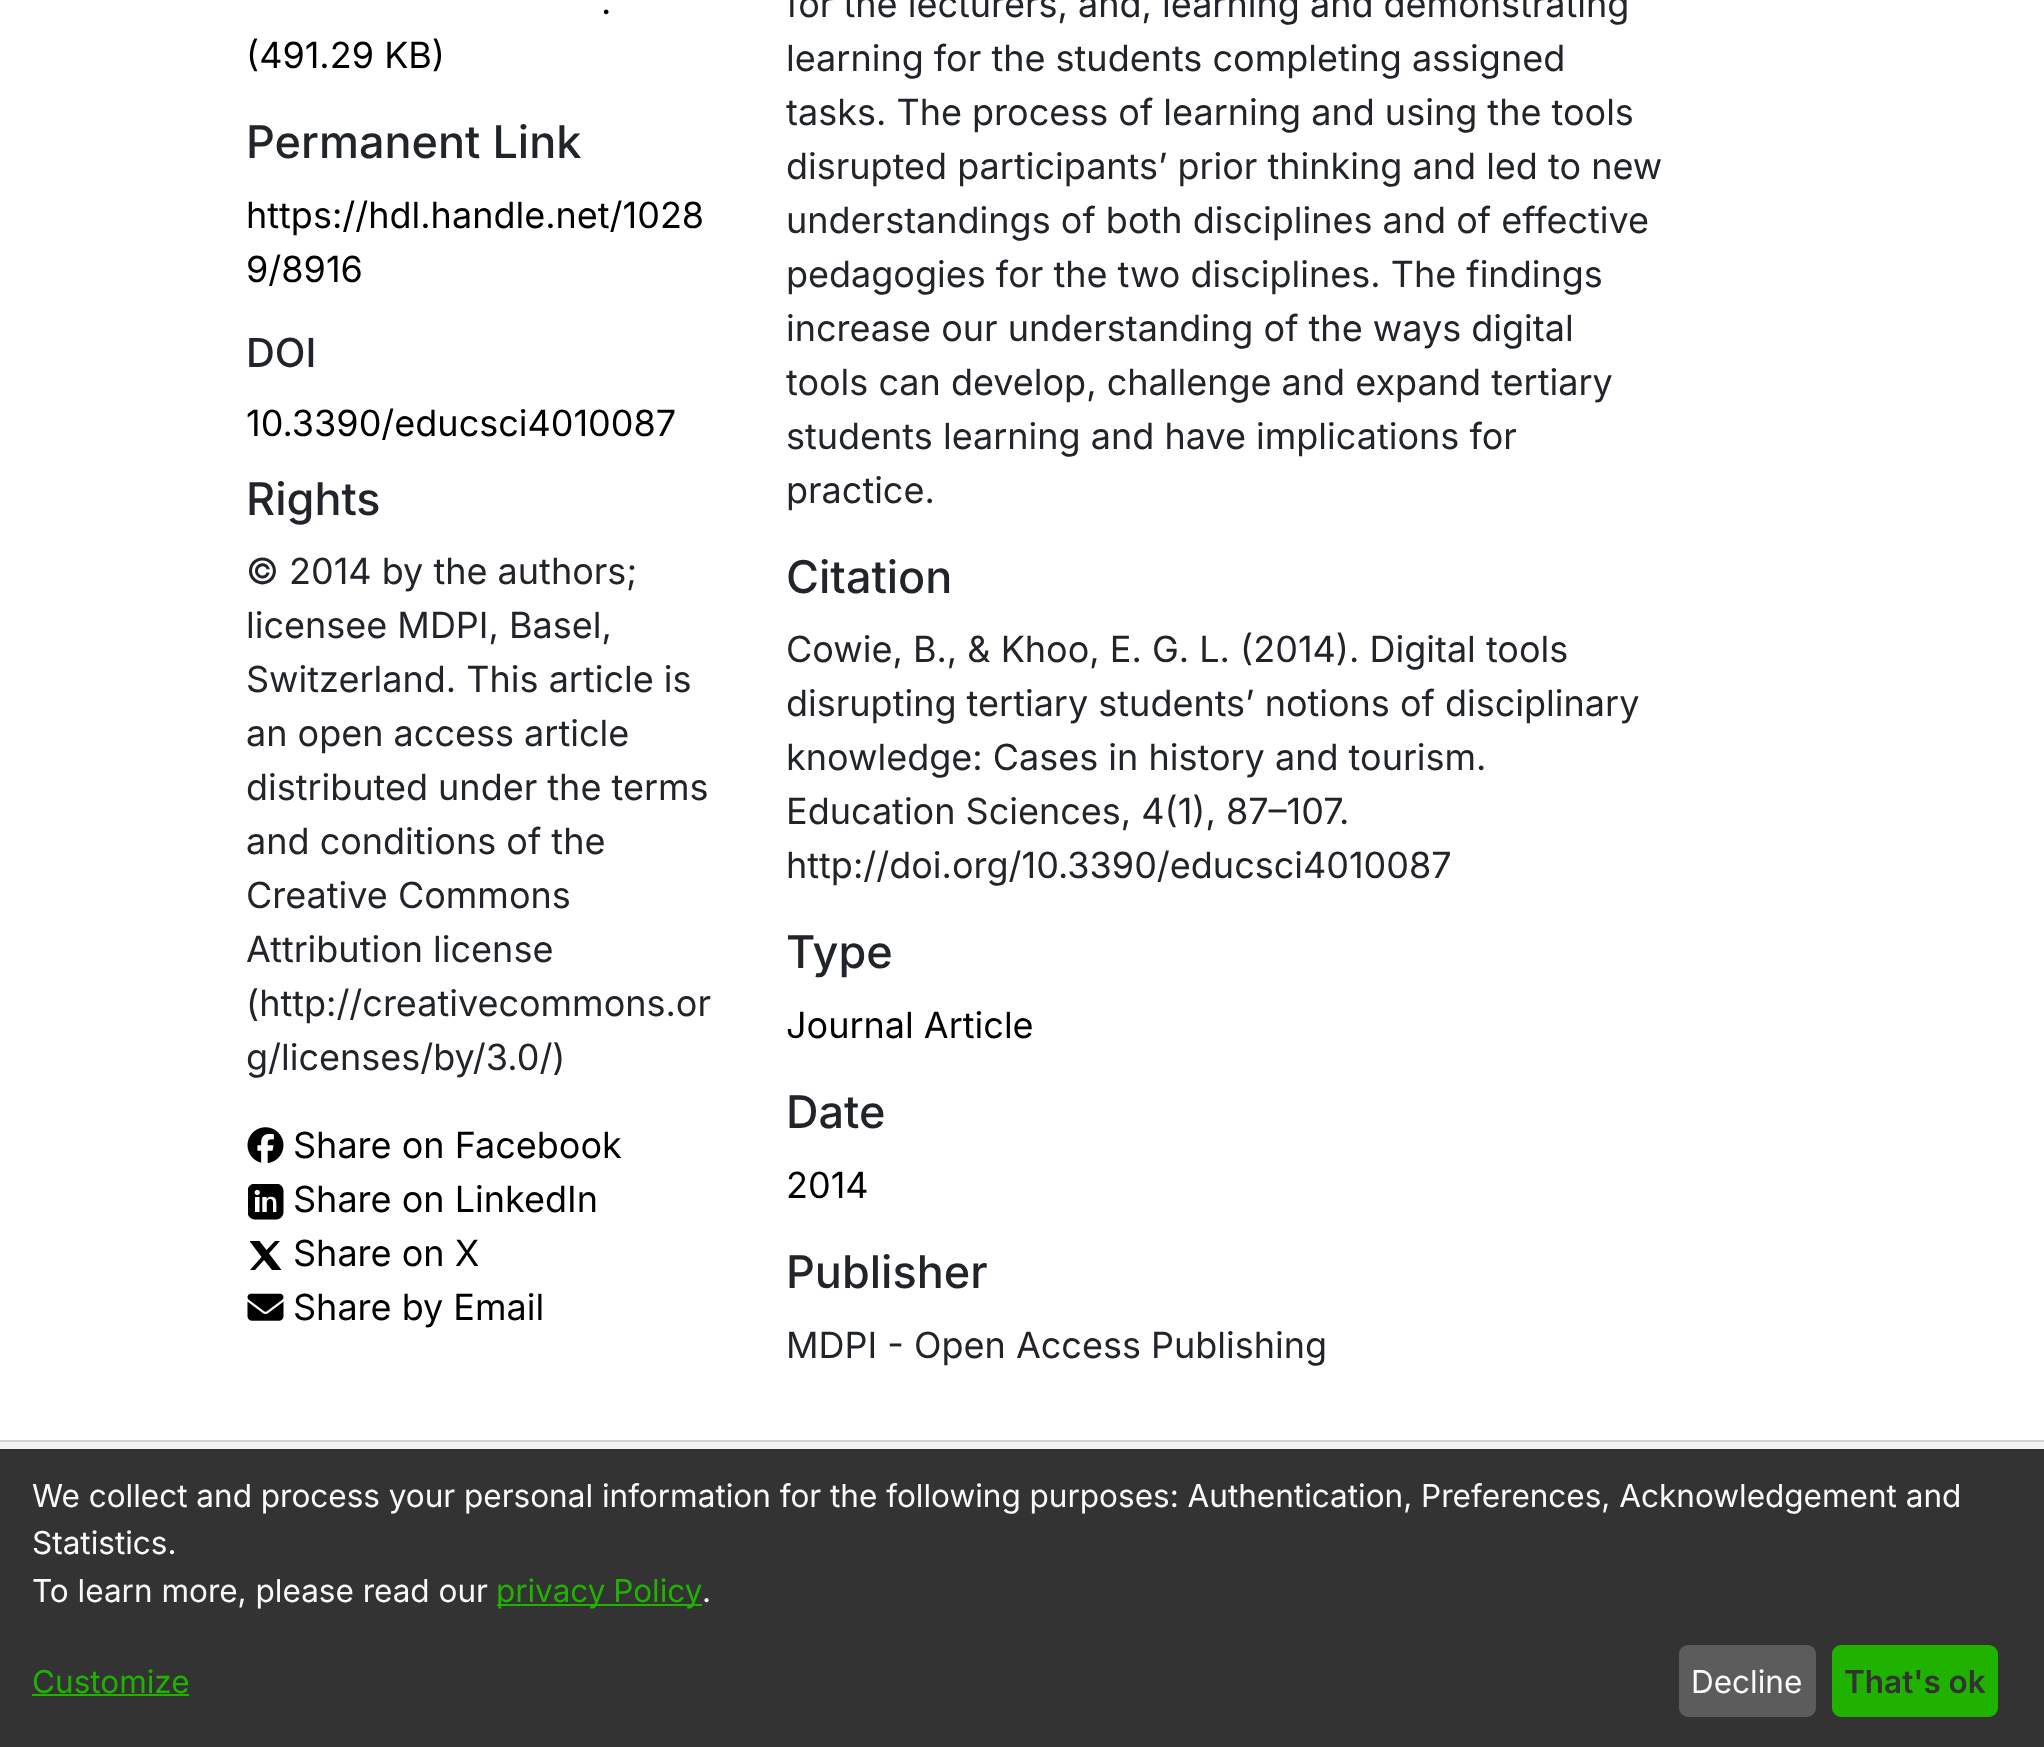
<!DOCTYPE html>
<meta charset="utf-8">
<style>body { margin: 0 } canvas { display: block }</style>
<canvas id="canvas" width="2044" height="1747"></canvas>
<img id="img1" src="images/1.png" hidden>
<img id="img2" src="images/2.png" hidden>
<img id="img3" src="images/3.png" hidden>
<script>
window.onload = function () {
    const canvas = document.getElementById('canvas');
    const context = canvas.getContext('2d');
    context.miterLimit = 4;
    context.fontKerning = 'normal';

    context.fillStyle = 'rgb(255, 255, 255)';
    context.fillRect(0, 0, 2044, 1747);
    context.drawImage(document.getElementById('img1'), 247, 1127, 37, 37);
    context.drawImage(document.getElementById('img2'), 248, 1184, 36, 36);
    context.fillStyle = 'rgb(0, 0, 0)';
    context.beginPath();
    context.moveTo(275, 1241);
    context.lineTo(280, 1241);
    context.lineTo(269, 1253.5);
    context.lineTo(281.5, 1270);
    context.lineTo(272, 1270);
    context.lineTo(264, 1260);
    context.lineTo(255, 1270);
    context.lineTo(250, 1270);
    context.lineTo(261.5, 1257);
    context.lineTo(249.5, 1241);
    context.lineTo(259.5, 1241);
    context.lineTo(266.5, 1250);
    context.closePath();
    context.fill();
    context.drawImage(document.getElementById('img3'), 247, 1293, 37, 28);
    context.fillStyle = 'rgb(206, 212, 218)';
    context.fillRect(0, 1440, 2044, 2);
    context.fillStyle = 'rgb(243, 243, 243)';
    context.fillRect(0, 1442, 2044, 7);
    context.fillStyle = 'rgb(51, 51, 51)';
    context.fillRect(0, 1449, 2044, 298);
    context.fillStyle = 'rgb(31, 179, 0)';
    context.fillRect(497, 1604, 205, 2);
    context.fillRect(32, 1694, 157, 2);
    context.fillStyle = 'rgb(92, 92, 92)';
    context.beginPath();
    context.roundRect(1679, 1645, 137, 72, 9);
    context.fill();
    context.fillStyle = 'rgb(31, 179, 0)';
    context.beginPath();
    context.roundRect(1832, 1645, 166, 72, 9);
    context.fill();
    context.font = '36px Inter';
    context.fillStyle = 'rgb(0, 0, 0)';
    context.fillText('.', 601, 14);
    context.fillText('(491.29 KB)', 246, 68);
    context.font = '500 45px Inter';
    context.fillStyle = 'rgb(33, 37, 41)';
    context.fillText('Permanent Link', 246, 158);
    context.font = '36px Inter';
    context.fillStyle = 'rgb(0, 0, 0)';
    context.fillText('https://hdl.handle.net/1028', 246, 228);
    context.fillText('9/8916', 246, 282);
    context.font = '500 40px Inter';
    context.fillStyle = 'rgb(33, 37, 41)';
    context.fillText('DOI', 246, 367);
    context.font = '36px Inter';
    context.fillStyle = 'rgb(0, 0, 0)';
    context.fillText('10.3390/educsci4010087', 246, 436);
    context.font = '500 45px Inter';
    context.fillStyle = 'rgb(33, 37, 41)';
    context.fillText('Rights', 246, 515);
    context.font = '36px Inter';
    context.fillText('© 2014 by the authors;', 246, 584);
    context.fillText('licensee MDPI, Basel,', 246, 638);
    context.fillText('Switzerland. This article is', 246, 692);
    context.fillText('an open access article', 246, 746);
    context.fillText('distributed under the terms', 246, 800);
    context.fillText('and conditions of the', 246, 854);
    context.fillText('Creative Commons', 246, 908);
    context.fillText('Attribution license', 246, 962);
    context.fillText('(http://creativecommons.or', 246, 1016);
    context.fillText('g/licenses/by/3.0/)', 246, 1070);
    context.fillStyle = 'rgb(0, 0, 0)';
    context.fillText('Share on Facebook', 293, 1158);
    context.fillText('Share on LinkedIn', 293, 1212);
    context.fillText('Share on X', 293, 1266);
    context.fillText('Share by Email', 293, 1320);
    context.fillStyle = 'rgb(33, 37, 41)';
    context.fillText('for the lecturers, and, learning and demonstrating', 786, 17);
    context.fillText('learning for the students completing assigned', 786, 71);
    context.fillText('tasks. The process of learning and using the tools', 786, 125);
    context.fillText('disrupted participants’ prior thinking and led to new', 786, 179);
    context.fillText('understandings of both disciplines and of effective', 786, 233);
    context.fillText('pedagogies for the two disciplines. The findings', 786, 287);
    context.fillText('increase our understanding of the ways digital', 786, 341);
    context.fillText('tools can develop, challenge and expand tertiary', 786, 395);
    context.fillText('students learning and have implications for', 786, 449);
    context.fillText('practice.', 786, 503);
    context.font = '500 45px Inter';
    context.fillText('Citation', 786, 593);
    context.font = '36px Inter';
    context.fillText('Cowie, B., & Khoo, E. G. L. (2014). Digital tools', 786, 662);
    context.fillText('disrupting tertiary students’ notions of disciplinary', 786, 716);
    context.fillText('knowledge: Cases in history and tourism.', 786, 770);
    context.fillText('Education Sciences, 4(1), 87–107.', 786, 824);
    context.fillText('http://doi.org/10.3390/educsci4010087', 786, 878);
    context.font = '500 45px Inter';
    context.fillText('Type', 786, 968);
    context.font = '36px Inter';
    context.fillStyle = 'rgb(0, 0, 0)';
    context.fillText('Journal Article', 786, 1038);
    context.font = '500 45px Inter';
    context.fillStyle = 'rgb(33, 37, 41)';
    context.fillText('Date', 786, 1128);
    context.font = '36px Inter';
    context.fillStyle = 'rgb(0, 0, 0)';
    context.fillText('2014', 786, 1198);
    context.font = '500 45px Inter';
    context.fillStyle = 'rgb(33, 37, 41)';
    context.fillText('Publisher', 786, 1288);
    context.font = '36px Inter';
    context.fillText('MDPI - Open Access Publishing', 786, 1358);
    context.font = '31.5px Inter';
    context.fillStyle = 'rgb(250, 250, 250)';
    context.fillText('We collect and process your personal information for the following purposes: Authentication, Preferences, Acknowledgement and', 32, 1507);
    context.fillText('Statistics.', 32, 1554);
    context.fillText('To learn more, please read our', 32, 1602);
    context.wordSpacing = '-1px';
    context.fillStyle = 'rgb(31, 179, 0)';
    context.fillText('privacy Policy', 496, 1602);
    context.wordSpacing = '0px';
    context.fillStyle = 'rgb(250, 250, 250)';
    context.fillText('.', 702, 1602);
    context.fillStyle = 'rgb(31, 179, 0)';
    context.fillText('Customize', 32, 1693);
    context.fillStyle = 'rgb(250, 250, 250)';
    context.fillText('Decline', 1691, 1693);
    context.font = '600 31.5px Inter';
    context.fillStyle = 'rgb(51, 51, 51)';
    context.fillText('That\'s ok', 1844, 1693);
};
</script>
